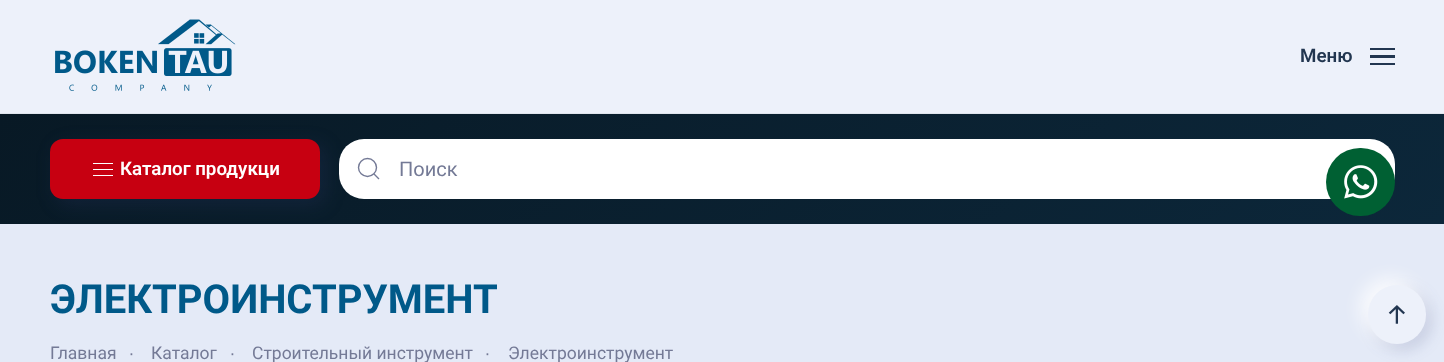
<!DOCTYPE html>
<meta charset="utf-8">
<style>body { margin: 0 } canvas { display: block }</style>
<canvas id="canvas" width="1444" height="362"></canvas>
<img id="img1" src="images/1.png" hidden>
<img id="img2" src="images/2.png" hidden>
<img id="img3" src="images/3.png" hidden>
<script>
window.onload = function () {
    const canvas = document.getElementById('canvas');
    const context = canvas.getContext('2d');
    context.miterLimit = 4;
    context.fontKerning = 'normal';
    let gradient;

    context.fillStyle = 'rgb(237, 241, 250)';
    context.fillRect(0, 0, 1444, 362);
    context.fillStyle = 'rgb(224, 229, 237)';
    context.fillRect(0, 113, 1444, 1);
    context.drawImage(document.getElementById('img1'), 55, 19, 181, 72);
    context.fillStyle = 'rgb(34, 54, 80)';
    context.fillRect(1370, 48, 25, 2);
    context.fillRect(1370, 55, 25, 3);
    context.fillRect(1370, 63, 25, 2);
    gradient = context.createLinearGradient(1048, 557, 397, -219);
    gradient.addColorStop(0, 'rgb(12, 39, 58)');
    gradient.addColorStop(1, 'rgb(8, 25, 37)');
    context.fillStyle = gradient;
    context.fillRect(0, 114, 1444, 110);
    context.fillStyle = 'rgb(228, 234, 247)';
    context.fillRect(0, 224, 1444, 138);
    context.fillStyle = 'rgba(57, 65, 124, 0.2)';
    context.filter = 'blur(9.5px)';
    context.beginPath();
    context.roundRect(56, 145, 270, 60, 13);
    context.fill();
    context.filter = 'none';
    context.fillStyle = 'rgb(199, 0, 17)';
    context.beginPath();
    context.roundRect(50, 139, 270, 60, 13);
    context.fill();
    context.fillStyle = 'rgb(255, 255, 255)';
    context.fillRect(93, 163, 20, 1);
    context.fillRect(93, 169, 20, 1);
    context.fillRect(93, 175, 20, 1);
    context.beginPath();
    context.roundRect(339, 139, 1056, 60, 25);
    context.fill();
    context.beginPath();
    context.arc(367.5, 167.5, 9, 0, 2 * Math.PI);
    context.strokeStyle = 'rgb(116, 122, 150)';
    context.lineWidth = 1.4;
    context.stroke();
    context.beginPath();
    context.moveTo(374, 174);
    context.lineTo(379, 179);
    context.closePath();
    context.stroke();
    context.fillStyle = 'rgb(0, 96, 51)';
    context.beginPath();
    context.roundRect(1326, 148, 69, 68, 34);
    context.fill();
    context.drawImage(document.getElementById('img2'), 1344, 165, 34, 34);
    context.fillStyle = 'rgba(57, 65, 124, 0.2)';
    context.filter = 'blur(7.5px)';
    context.beginPath();
    context.roundRect(1373, 290, 58, 59, 29);
    context.fill();
    context.filter = 'none';
    context.fillStyle = 'rgba(255, 255, 255, 0.9)';
    context.filter = 'blur(9.5px)';
    context.beginPath();
    context.roundRect(1361, 279, 59, 59, 29.5);
    context.fill();
    context.filter = 'none';
    context.fillStyle = 'rgb(237, 241, 250)';
    context.beginPath();
    context.roundRect(1368, 285, 58, 59, 29);
    context.fill();
    context.drawImage(document.getElementById('img3'), 1388, 305, 17, 19);
    context.font = '600 18.75px Roboto';
    context.fillStyle = 'rgb(34, 54, 80)';
    context.fillText('Меню', 1300, 62);
    context.fillStyle = 'rgb(255, 255, 255)';
    context.fillText('Каталог продукци', 120, 175);
    context.font = '20px Roboto';
    context.fillStyle = 'rgb(116, 122, 150)';
    context.fillText('Поиск', 399, 176);
    context.font = 'bold 40px Roboto';
    context.fillStyle = 'rgb(0, 89, 137)';
    context.fillText('ЭЛЕКТРОИНСТРУМЕНТ', 50, 313);
    context.font = '17.5px Roboto';
    context.fillStyle = 'rgb(116, 122, 150)';
    context.fillText('Главная', 50, 359);
    context.font = '17.5px Liberation Sans';
    context.fillText('∙', 129, 359);
    context.font = '17.5px Roboto';
    context.fillText('Каталог', 151, 359);
    context.font = '17.5px Liberation Sans';
    context.fillText('∙', 230, 359);
    context.font = '17.5px Roboto';
    context.fillText('Строительный инструмент', 252, 359);
    context.font = '17.5px Liberation Sans';
    context.fillText('∙', 485, 359);
    context.font = '17.5px Roboto';
    context.fillText('Электроинструмент', 508, 359);
};
</script>
